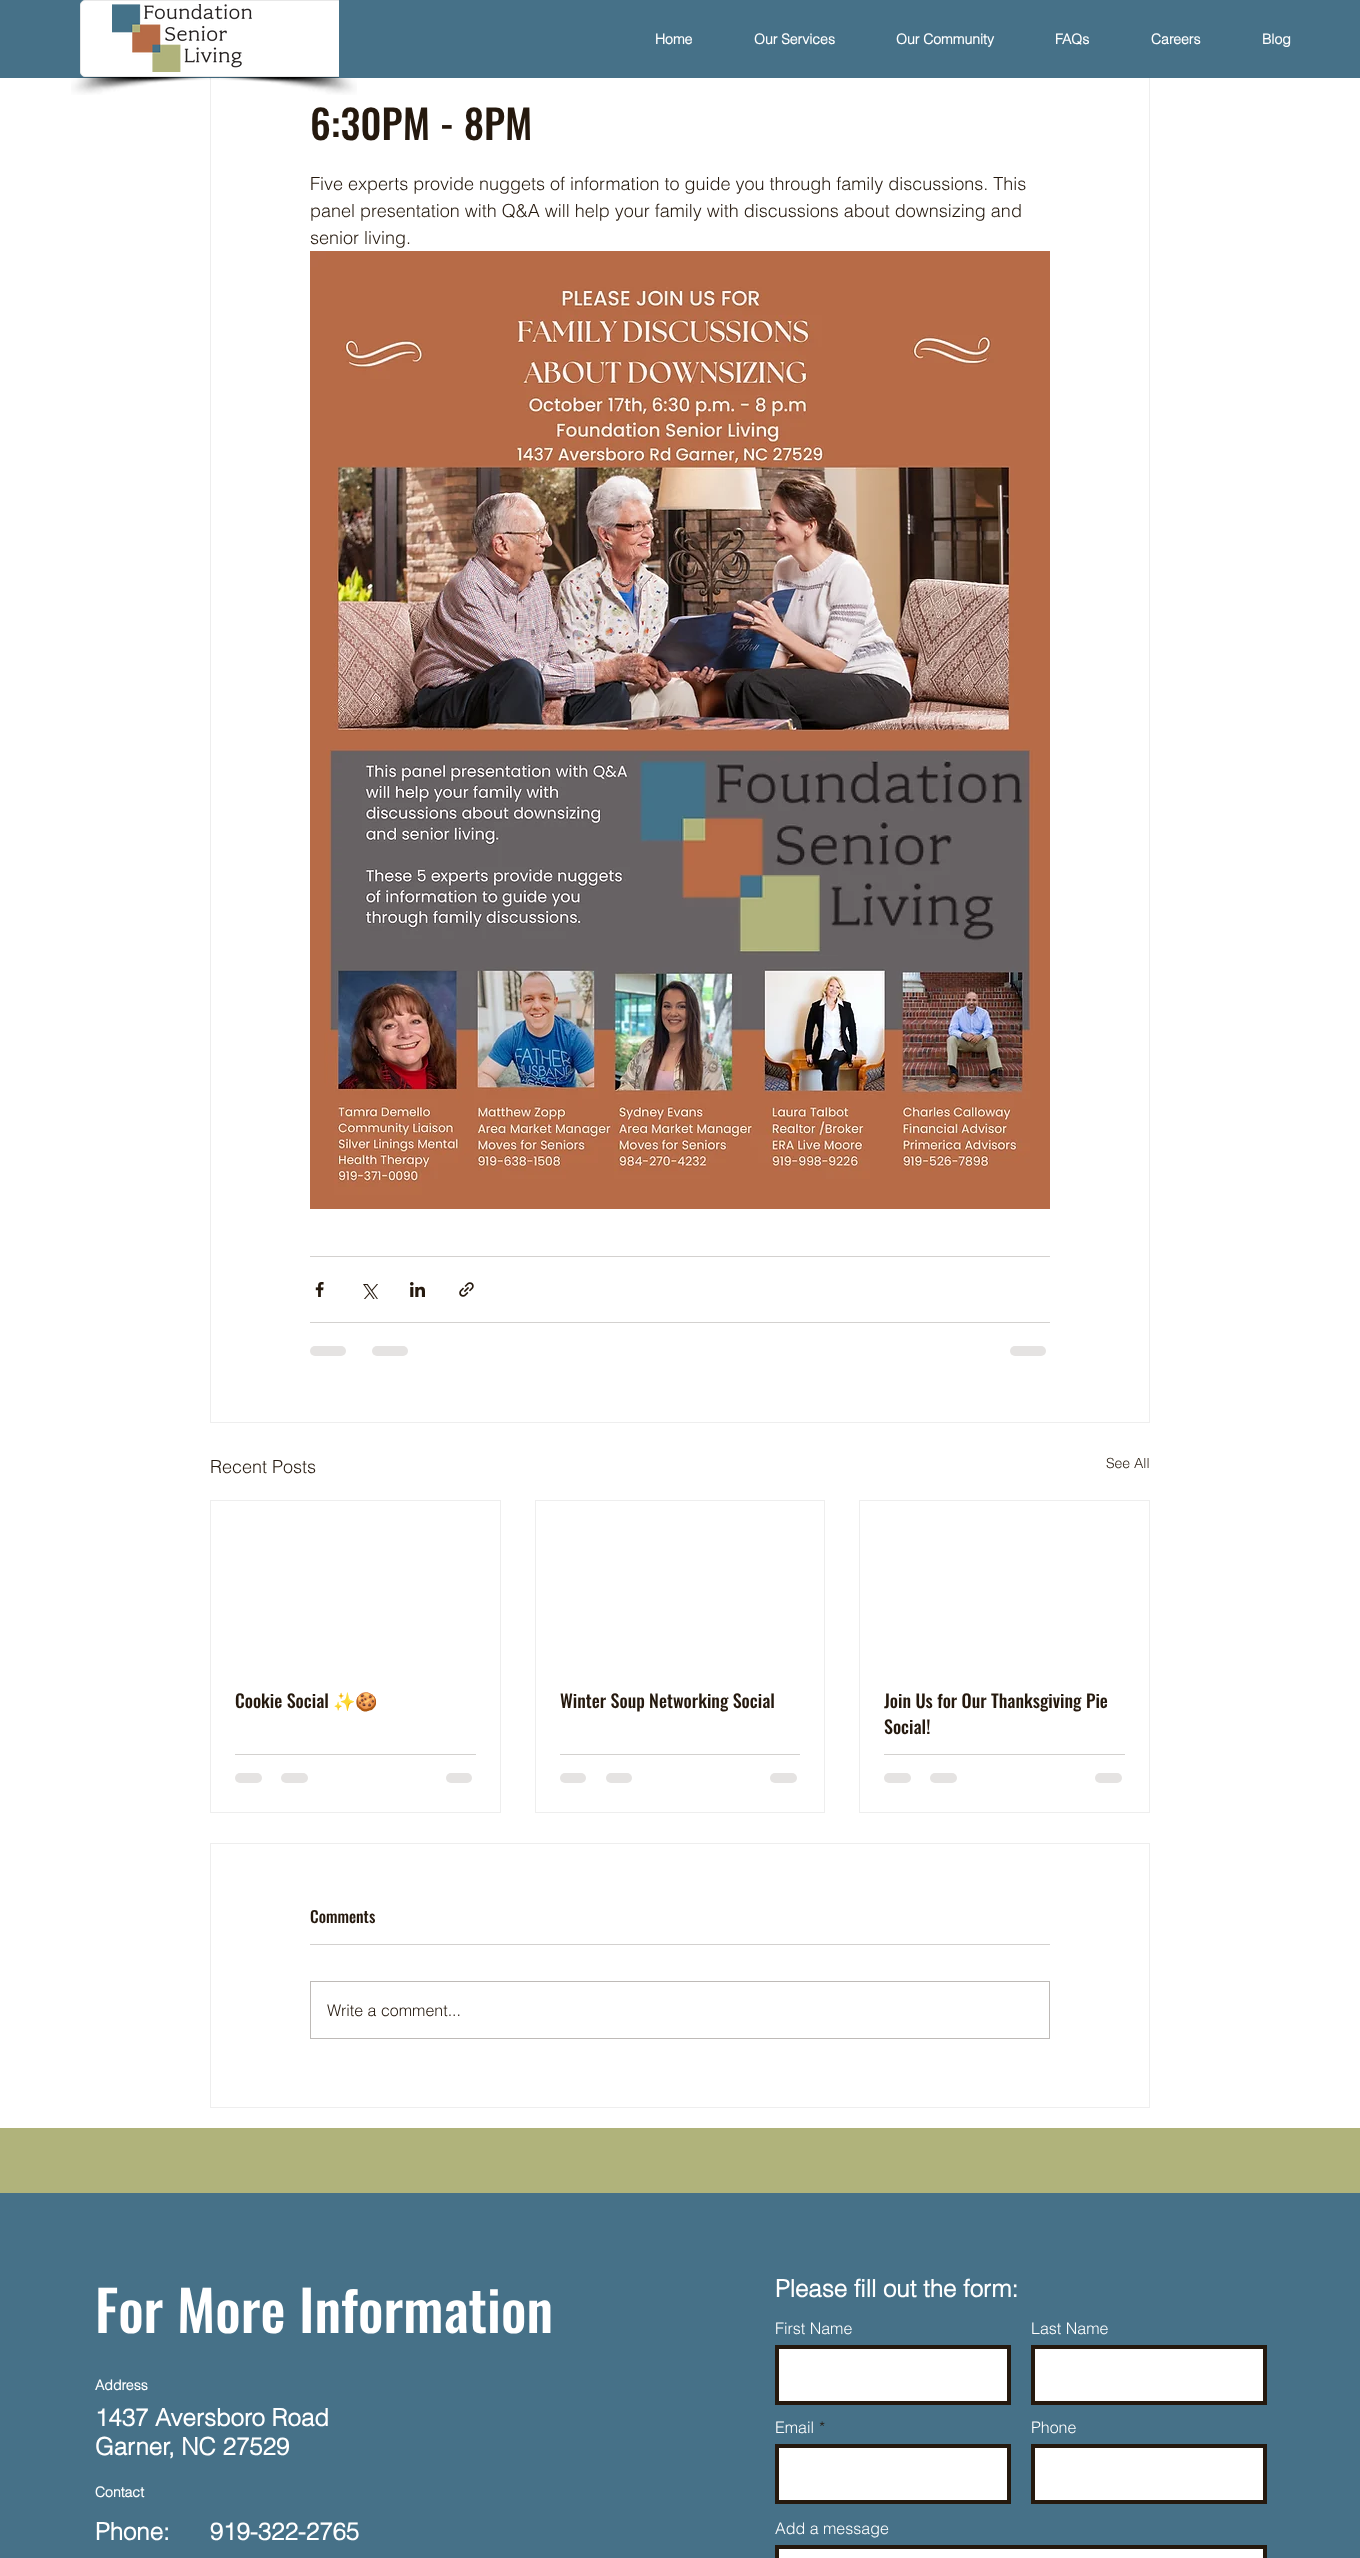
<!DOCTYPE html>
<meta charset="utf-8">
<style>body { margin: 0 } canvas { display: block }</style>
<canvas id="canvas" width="1360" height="2558"></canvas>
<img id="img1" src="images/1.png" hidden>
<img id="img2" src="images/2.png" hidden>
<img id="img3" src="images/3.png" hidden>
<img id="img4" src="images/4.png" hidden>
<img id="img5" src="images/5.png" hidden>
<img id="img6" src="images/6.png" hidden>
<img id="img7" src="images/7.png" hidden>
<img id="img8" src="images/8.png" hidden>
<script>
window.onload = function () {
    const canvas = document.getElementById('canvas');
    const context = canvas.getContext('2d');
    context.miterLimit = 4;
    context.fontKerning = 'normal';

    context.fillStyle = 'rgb(255, 255, 255)';
    context.fillRect(0, 0, 1360, 2558);
    context.strokeStyle = 'rgb(238, 238, 238)';
    context.strokeRect(210.5, -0.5, 939, 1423);
    context.fillStyle = 'rgb(70, 113, 136)';
    context.fillRect(0, 0, 339, 78);
    context.fillStyle = 'rgb(255, 255, 255)';
    context.beginPath();
    context.roundRect(80.5, 0.5, 267, 76, 4.5);
    context.fill();
    context.strokeStyle = 'rgb(232, 232, 232)';
    context.stroke();
    context.drawImage(document.getElementById('img1'), 112, 4, 140, 68);
    context.drawImage(document.getElementById('img2'), 71, 77, 148, 18);
    context.drawImage(document.getElementById('img3'), 209, 77, 148, 18);
    context.fillStyle = 'rgb(70, 113, 136)';
    context.fillRect(339, 0, 1021, 78);
    context.drawImage(document.getElementById('img4'), 310, 251, 740, 958);
    context.fillStyle = 'rgb(211, 209, 207)';
    context.fillRect(310, 1256, 740, 1);
    context.drawImage(document.getElementById('img5'), 315, 1282, 9, 15);
    context.drawImage(document.getElementById('img6'), 363, 1284, 15, 15);
    context.drawImage(document.getElementById('img7'), 410, 1282, 15, 15);
    context.drawImage(document.getElementById('img8'), 459, 1282, 15, 15);
    context.fillRect(310, 1322, 740, 1);
    context.fillStyle = 'rgb(229, 227, 226)';
    context.beginPath();
    context.roundRect(310, 1346, 36, 10, 5);
    context.fill();
    context.beginPath();
    context.roundRect(372, 1346, 36, 10, 5);
    context.fill();
    context.beginPath();
    context.roundRect(1010, 1346, 36, 10, 5);
    context.fill();
    context.strokeStyle = 'rgb(238, 238, 238)';
    context.strokeRect(210.5, 1500.5, 290, 312);
    context.fillStyle = 'rgb(211, 209, 207)';
    context.fillRect(235, 1754, 241, 1);
    context.fillStyle = 'rgb(229, 227, 226)';
    context.beginPath();
    context.roundRect(235, 1773, 27, 10, 5);
    context.fill();
    context.beginPath();
    context.roundRect(281, 1773, 27, 10, 5);
    context.fill();
    context.beginPath();
    context.roundRect(446, 1773, 26, 10, 5);
    context.fill();
    context.strokeRect(535.5, 1500.5, 289, 312);
    context.fillStyle = 'rgb(211, 209, 207)';
    context.fillRect(560, 1754, 240, 1);
    context.fillStyle = 'rgb(229, 227, 226)';
    context.beginPath();
    context.roundRect(560, 1773, 26, 10, 5);
    context.fill();
    context.beginPath();
    context.roundRect(606, 1773, 26, 10, 5);
    context.fill();
    context.beginPath();
    context.roundRect(770, 1773, 27, 10, 5);
    context.fill();
    context.strokeRect(859.5, 1500.5, 290, 312);
    context.fillStyle = 'rgb(211, 209, 207)';
    context.fillRect(884, 1754, 241, 1);
    context.fillStyle = 'rgb(229, 227, 226)';
    context.beginPath();
    context.roundRect(884, 1773, 27, 10, 5);
    context.fill();
    context.beginPath();
    context.roundRect(930, 1773, 27, 10, 5);
    context.fill();
    context.beginPath();
    context.roundRect(1095, 1773, 27, 10, 5);
    context.fill();
    context.strokeRect(210.5, 1843.5, 939, 264);
    context.fillStyle = 'rgb(211, 209, 207)';
    context.fillRect(310, 1944, 740, 1);
    context.strokeStyle = 'rgb(190, 186, 183)';
    context.strokeRect(310.5, 1981.5, 739, 57);
    context.fillStyle = 'rgb(176, 179, 123)';
    context.fillRect(0, 2128, 1360, 65);
    context.fillStyle = 'rgb(70, 113, 136)';
    context.fillRect(0, 2193, 1360, 365);
    context.fillStyle = 'rgb(255, 255, 255)';
    context.beginPath();
    context.rect(777, 2347, 232, 56);
    context.fill();
    context.strokeStyle = 'rgb(37, 25, 14)';
    context.lineWidth = 4;
    context.stroke();
    context.beginPath();
    context.rect(1033, 2347, 232, 56);
    context.fill();
    context.stroke();
    context.beginPath();
    context.rect(777, 2446, 232, 56);
    context.fill();
    context.stroke();
    context.beginPath();
    context.rect(1033, 2446, 232, 56);
    context.fill();
    context.stroke();
    context.beginPath();
    context.rect(777, 2547, 488, 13);
    context.fill();
    context.stroke();
    context.font = 'bold 14px helvetica';
    context.fillText('Home', 655, 44);
    context.fillText('Our Services', 754, 44);
    context.fillText('Our Community', 896, 44);
    context.fillText('FAQs', 1055, 44);
    context.fillText('Careers', 1151, 44);
    context.fillText('Blog', 1262, 44);
    context.font = '500 40px Oswald';
    context.fillStyle = 'rgb(37, 25, 14)';
    context.fillText('6:30PM - 8PM', 310, 140);
    context.font = '300 18px helvetica';
    context.fillText('Five experts provide nuggets of information to guide you through family discussions. This', 310, 190);
    context.fillText('panel presentation with Q&A will help your family with discussions about downsizing and', 310, 217);
    context.fillText('senior living.', 310, 244);
    context.fillText('Recent Posts', 210, 1473);
    context.font = '300 14px helvetica';
    context.fillText('See All', 1106, 1468);
    context.font = '500 18px Oswald';
    context.fillText('Cookie Social', 235, 1708);
    context.font = '18px Noto Color Emoji';
    context.fillText('✨🍪', 333, 1708);
    context.font = '500 18px Oswald';
    context.fillText('Winter Soup Networking Social', 560, 1708);
    context.fillText('Join Us for Our Thanksgiving Pie', 884, 1708);
    context.fillText('Social!', 884, 1734);
    context.font = '500 16px Oswald';
    context.fillText('Comments', 310, 1923);
    context.font = '300 16px helvetica';
    context.fillText('Write a comment...', 327, 2016);
    context.font = '500 56px Oswald';
    context.fillStyle = 'rgb(255, 255, 255)';
    context.fillText('For More Information', 95, 2333);
    context.font = 'bold 14px helvetica';
    context.fillText('Address', 95, 2390);
    context.font = 'bold 24px helvetica';
    context.fillText('1437 Aversboro Road', 95, 2426);
    context.fillText('Garner, NC 27529', 95, 2455);
    context.font = 'bold 14px helvetica';
    context.fillText('Contact', 95, 2497);
    context.font = 'bold 24px helvetica';
    context.fillText('Phone:      919-322-2765', 95, 2540);
    context.fillText('Please fill out the form:', 775, 2297);
    context.font = '300 16px helvetica';
    context.fillText('First Name', 775, 2334);
    context.fillText('Last Name', 1031, 2334);
    context.fillText('Email', 775, 2433);
    context.fillStyle = 'rgb(37, 25, 14)';
    context.fillText('*', 819, 2433);
    context.fillStyle = 'rgb(255, 255, 255)';
    context.fillText('Phone', 1031, 2433);
    context.fillText('Add a message', 775, 2534);
};
</script>
